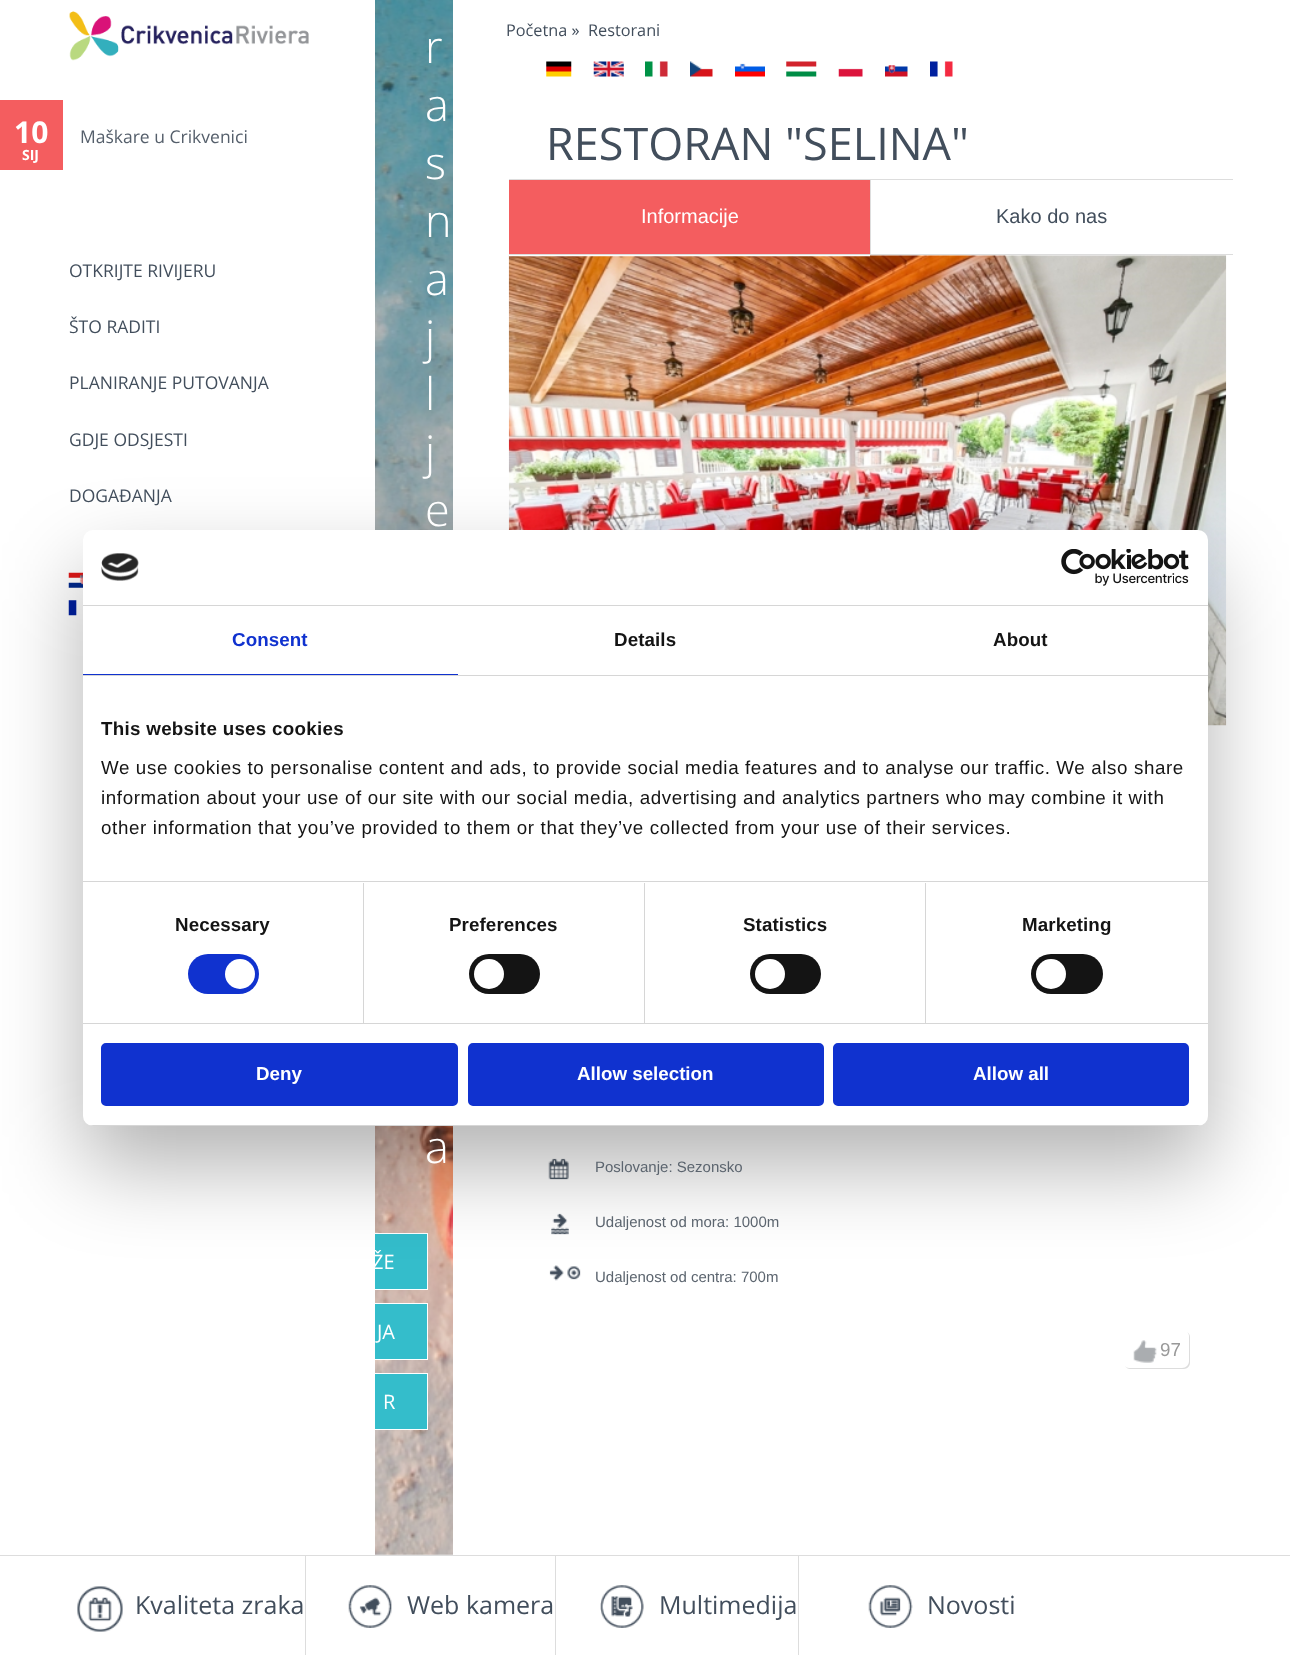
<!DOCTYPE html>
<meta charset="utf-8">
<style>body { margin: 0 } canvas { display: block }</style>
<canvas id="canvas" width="1290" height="1655"></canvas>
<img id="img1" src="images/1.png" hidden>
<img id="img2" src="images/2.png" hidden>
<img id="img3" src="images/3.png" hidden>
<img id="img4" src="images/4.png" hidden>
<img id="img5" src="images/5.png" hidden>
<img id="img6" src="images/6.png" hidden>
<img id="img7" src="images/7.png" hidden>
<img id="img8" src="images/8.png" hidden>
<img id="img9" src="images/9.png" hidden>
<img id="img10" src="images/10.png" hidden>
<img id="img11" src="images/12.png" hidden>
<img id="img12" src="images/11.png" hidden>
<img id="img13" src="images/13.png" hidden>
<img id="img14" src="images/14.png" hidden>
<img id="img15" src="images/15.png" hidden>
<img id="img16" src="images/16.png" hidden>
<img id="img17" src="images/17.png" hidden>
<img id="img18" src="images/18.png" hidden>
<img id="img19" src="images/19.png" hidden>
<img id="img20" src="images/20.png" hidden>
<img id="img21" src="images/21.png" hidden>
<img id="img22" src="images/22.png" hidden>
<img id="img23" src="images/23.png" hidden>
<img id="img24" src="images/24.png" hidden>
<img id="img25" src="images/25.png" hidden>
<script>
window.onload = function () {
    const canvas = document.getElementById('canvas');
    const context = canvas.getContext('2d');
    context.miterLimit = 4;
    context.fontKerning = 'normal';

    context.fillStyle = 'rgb(255, 255, 255)';
    context.fillRect(0, 0, 1290, 1655);
    context.fillStyle = 'rgb(244, 93, 95)';
    context.fillRect(0, 100, 63, 70);
    context.drawImage(document.getElementById('img1'), 375, 0, 78, 1555);
    context.fillStyle = 'rgb(52, 189, 203)';
    context.fillRect(375, 1234, 52, 55);
    context.strokeStyle = 'rgb(255, 255, 255)';
    context.strokeRect(305.5, 1233.5, 122, 56);
    context.fillRect(375, 1304, 52, 55);
    context.strokeRect(245.5, 1303.5, 182, 56);
    context.fillRect(375, 1374, 52, 55);
    context.strokeRect(264.5, 1373.5, 163, 56);
    context.drawImage(document.getElementById('img2'), 546, 61, 26, 16);
    context.drawImage(document.getElementById('img3'), 593, 61, 31, 16);
    context.drawImage(document.getElementById('img4'), 645, 61, 23, 16);
    context.drawImage(document.getElementById('img5'), 690, 61, 23, 16);
    context.drawImage(document.getElementById('img6'), 735, 63, 30, 14);
    context.drawImage(document.getElementById('img7'), 786, 61, 31, 16);
    context.drawImage(document.getElementById('img8'), 838, 68, 25, 9);
    context.drawImage(document.getElementById('img9'), 885, 65, 23, 12);
    context.drawImage(document.getElementById('img10'), 930, 61, 23, 16);
    context.drawImage(document.getElementById('img11'), 508, 255, 719, 471);
    context.fillStyle = 'rgb(255, 255, 255)';
    context.fillRect(509, 255, 361, 1);
    context.fillStyle = 'rgba(255, 255, 255, 0.25)';
    context.fillRect(509, 256, 361, 1);
    context.fillStyle = 'rgb(244, 93, 95)';
    context.fillRect(509, 180, 361, 74);
    context.fillStyle = 'rgb(221, 221, 221)';
    context.fillRect(509, 179, 724, 1);
    context.fillRect(870, 179, 1, 76);
    context.fillRect(509, 254, 724, 1);
    context.drawImage(document.getElementById('img12'), 871, 255, 361, 1);
    context.drawImage(document.getElementById('img13'), 548, 1158, 21, 22);
    context.drawImage(document.getElementById('img14'), 551, 1213, 18, 22);
    context.drawImage(document.getElementById('img15'), 549, 1265, 32, 16);
    context.beginPath();
    context.moveTo(1125, 1366);
    context.bezierCurveTo(1126, 1368, 1128, 1369, 1130, 1369);
    context.lineTo(1184, 1369);
    context.bezierCurveTo(1187, 1369, 1190, 1366, 1190, 1363);
    context.lineTo(1190, 1337);
    context.bezierCurveTo(1190, 1335, 1189, 1333, 1187, 1332);
    context.bezierCurveTo(1188, 1333, 1189, 1334, 1189, 1336);
    context.lineTo(1189, 1361);
    context.bezierCurveTo(1189, 1365, 1186, 1368, 1182, 1368);
    context.lineTo(1129, 1368);
    context.bezierCurveTo(1127, 1368, 1126, 1367, 1125, 1366);
    context.closePath();
    context.fill();
    context.drawImage(document.getElementById('img16'), 1133, 1340, 24, 23);
    context.drawImage(document.getElementById('img17'), 69, 11, 240, 50);
    context.drawImage(document.getElementById('img18'), 68, 572, 15, 16);
    context.drawImage(document.getElementById('img19'), 68, 600, 15, 16);
    context.fillStyle = 'rgba(0, 0, 0, 0.3)';
    context.filter = 'blur(42.5px)';
    context.beginPath();
    context.roundRect(83, 570, 1125, 596, 10);
    context.fill();
    context.filter = 'none';
    context.fillStyle = 'rgb(255, 255, 255)';
    context.beginPath();
    context.roundRect(83, 530, 1125, 596, 10);
    context.fill();
    context.fillStyle = 'rgb(214, 214, 214)';
    context.fillRect(83, 605, 1125, 1);
    context.drawImage(document.getElementById('img20'), 101, 553, 38, 28);
    context.drawImage(document.getElementById('img21'), 1061, 549, 128, 37);
    context.fillRect(83, 675, 1125, 1);
    context.fillStyle = 'rgb(16, 50, 207)';
    context.fillRect(83, 674, 375, 1);
    context.fillStyle = 'rgb(214, 214, 214)';
    context.fillRect(83, 881, 1125, 1);
    context.fillRect(83, 1023, 1125, 1);
    context.fillRect(363, 883, 1, 140);
    context.fillStyle = 'rgb(16, 50, 207)';
    context.beginPath();
    context.roundRect(188, 954, 71, 40, 20);
    context.fill();
    context.fillStyle = 'rgb(255, 255, 255)';
    context.beginPath();
    context.arc(240, 974, 15, 0, 2 * Math.PI);
    context.fill();
    context.fillStyle = 'rgb(214, 214, 214)';
    context.fillRect(644, 883, 1, 140);
    context.fillStyle = 'rgb(20, 20, 20)';
    context.beginPath();
    context.roundRect(469, 954, 71, 40, 20);
    context.fill();
    context.fillStyle = 'rgb(255, 255, 255)';
    context.beginPath();
    context.arc(489, 974, 15, 0, 2 * Math.PI);
    context.fill();
    context.fillStyle = 'rgb(214, 214, 214)';
    context.fillRect(925, 883, 1, 140);
    context.fillStyle = 'rgb(20, 20, 20)';
    context.beginPath();
    context.roundRect(750, 954, 71, 40, 20);
    context.fill();
    context.fillStyle = 'rgb(255, 255, 255)';
    context.beginPath();
    context.arc(770, 974, 15, 0, 2 * Math.PI);
    context.fill();
    context.fillStyle = 'rgb(20, 20, 20)';
    context.beginPath();
    context.roundRect(1031, 954, 72, 40, 20);
    context.fill();
    context.fillStyle = 'rgb(255, 255, 255)';
    context.beginPath();
    context.arc(1051, 974, 15, 0, 2 * Math.PI);
    context.fill();
    context.save();
    context.beginPath();
    context.roundRect(83, 530, 1125, 596, 10);
    context.clip();
    context.fillStyle = 'rgb(214, 214, 214)';
    context.fillRect(83, 1125, 1125, 1);
    context.restore();
    context.fillStyle = 'rgb(16, 50, 207)';
    context.beginPath();
    context.roundRect(102.5, 1044.5, 354, 60, 3.5);
    context.fill();
    context.strokeStyle = 'rgb(16, 50, 207)';
    context.lineWidth = 3;
    context.stroke();
    context.beginPath();
    context.roundRect(469.5, 1044.5, 353, 60, 3.5);
    context.fill();
    context.stroke();
    context.beginPath();
    context.roundRect(834.5, 1044.5, 353, 60, 3.5);
    context.fill();
    context.stroke();
    context.fillStyle = 'rgb(221, 221, 221)';
    context.fillRect(0, 1555, 1290, 1);
    context.fillRect(305, 1556, 1, 99);
    context.drawImage(document.getElementById('img22'), 77, 1586, 46, 46);
    context.fillRect(555, 1556, 1, 99);
    context.drawImage(document.getElementById('img23'), 348, 1585, 44, 43);
    context.fillRect(798, 1556, 1, 99);
    context.drawImage(document.getElementById('img24'), 600, 1585, 44, 43);
    context.drawImage(document.getElementById('img25'), 868, 1585, 45, 43);
    context.font = 'bold 30px Open Sans';
    context.fillStyle = 'rgb(255, 255, 255)';
    context.fillText('10', 14, 143);
    context.font = 'bold 14px Open Sans';
    context.fillText('SIJ', 22, 160);
    context.font = '17.5px Open Sans';
    context.fillStyle = 'rgb(85, 95, 107)';
    context.fillText('Maškare u Crikvenici', 80, 143);
    context.font = '16.25px Open Sans';
    context.fillStyle = 'rgb(66, 78, 92)';
    context.fillText('Početna »', 506, 36);
    context.fillText('Restorani', 588, 36);
    context.font = '300 45px Open Sans';
    context.fillStyle = 'rgb(255, 255, 255)';
    context.fillText('r', 425, 63);
    context.fillText('a', 425, 121);
    context.fillText('s', 425, 179);
    context.fillText('n', 425, 237);
    context.fillText('a', 425, 295);
    context.fillText('j', 425, 353);
    context.fillText('l', 425, 410);
    context.fillText('j', 425, 468);
    context.fillText('e', 425, 526);
    context.fillText('a', 425, 1163);
    context.font = '20px Open Sans';
    context.fillText('ŽE', 372, 1269);
    context.fillText('JA', 377, 1339);
    context.fillText('R', 383, 1409);
    context.font = '45px Open Sans';
    context.fillStyle = 'rgb(66, 78, 92)';
    context.fillText('RESTORAN "SELINA"', 546, 160);
    context.font = '20px Liberation Sans';
    context.fillStyle = 'rgb(255, 255, 255)';
    context.fillText('Informacije', 641, 223);
    context.fillStyle = 'rgb(66, 78, 92)';
    context.fillText('Kako do nas', 996, 223);
    context.font = '15px Liberation Sans';
    context.fillStyle = 'rgb(92, 101, 111)';
    context.fillText('Poslovanje: Sezonsko', 595, 1172);
    context.fillText('Udaljenost od mora: 1000m', 595, 1227);
    context.fillText('Udaljenost od centra: 700m', 595, 1282);
    context.font = '18.75px Liberation Sans';
    context.fillStyle = 'rgb(153, 153, 153)';
    context.fillText('97', 1160, 1356);
    context.font = '17.5px Open Sans';
    context.fillStyle = 'rgb(66, 78, 92)';
    context.fillText('OTKRIJTE RIVIJERU', 69, 277);
    context.fillText('ŠTO RADITI', 69, 333);
    context.fillText('PLANIRANJE PUTOVANJA', 69, 389);
    context.fillText('GDJE ODSJESTI', 69, 446);
    context.fillText('DOGAĐANJA', 69, 502);
    context.letterSpacing = '0.1px';
    context.font = 'bold 18.75px Liberation Sans';
    context.fillStyle = 'rgb(16, 50, 207)';
    context.fillText('Consent', 232, 646);
    context.fillStyle = 'rgb(20, 20, 20)';
    context.fillText('Details', 614, 646);
    context.fillText('About', 993, 646);
    context.letterSpacing = '0.3px';
    context.fillText('This website uses cookies', 101, 735);
    context.letterSpacing = '0.62px';
    context.font = '18.75px Liberation Sans';
    context.fillText('We use cookies to personalise content and ads, to provide social media features and to analyse our traffic. We also share', 101, 774);
    context.fillText('information about your use of our site with our social media, advertising and analytics partners who may combine it with', 101, 804);
    context.fillText('other information that you’ve provided to them or that they’ve collected from your use of their services.', 101, 834);
    context.letterSpacing = '0.1px';
    context.font = 'bold 18.75px Liberation Sans';
    context.fillText('Necessary', 175, 931);
    context.fillText('Preferences', 449, 931);
    context.fillText('Statistics', 743, 931);
    context.fillText('Marketing', 1022, 931);
    context.letterSpacing = '0px';
    context.fillStyle = 'rgb(255, 255, 255)';
    context.fillText('Deny', 256, 1080);
    context.fillText('Allow selection', 577, 1080);
    context.fillText('Allow all', 973, 1080);
    context.font = '25px Open Sans';
    context.fillStyle = 'rgb(66, 78, 92)';
    context.fillText('Kvaliteta zraka', 135, 1614);
    context.fillText('Web kamera', 407, 1614);
    context.fillText('Multimedija', 659, 1614);
    context.fillText('Novosti', 927, 1614);
};
</script>
